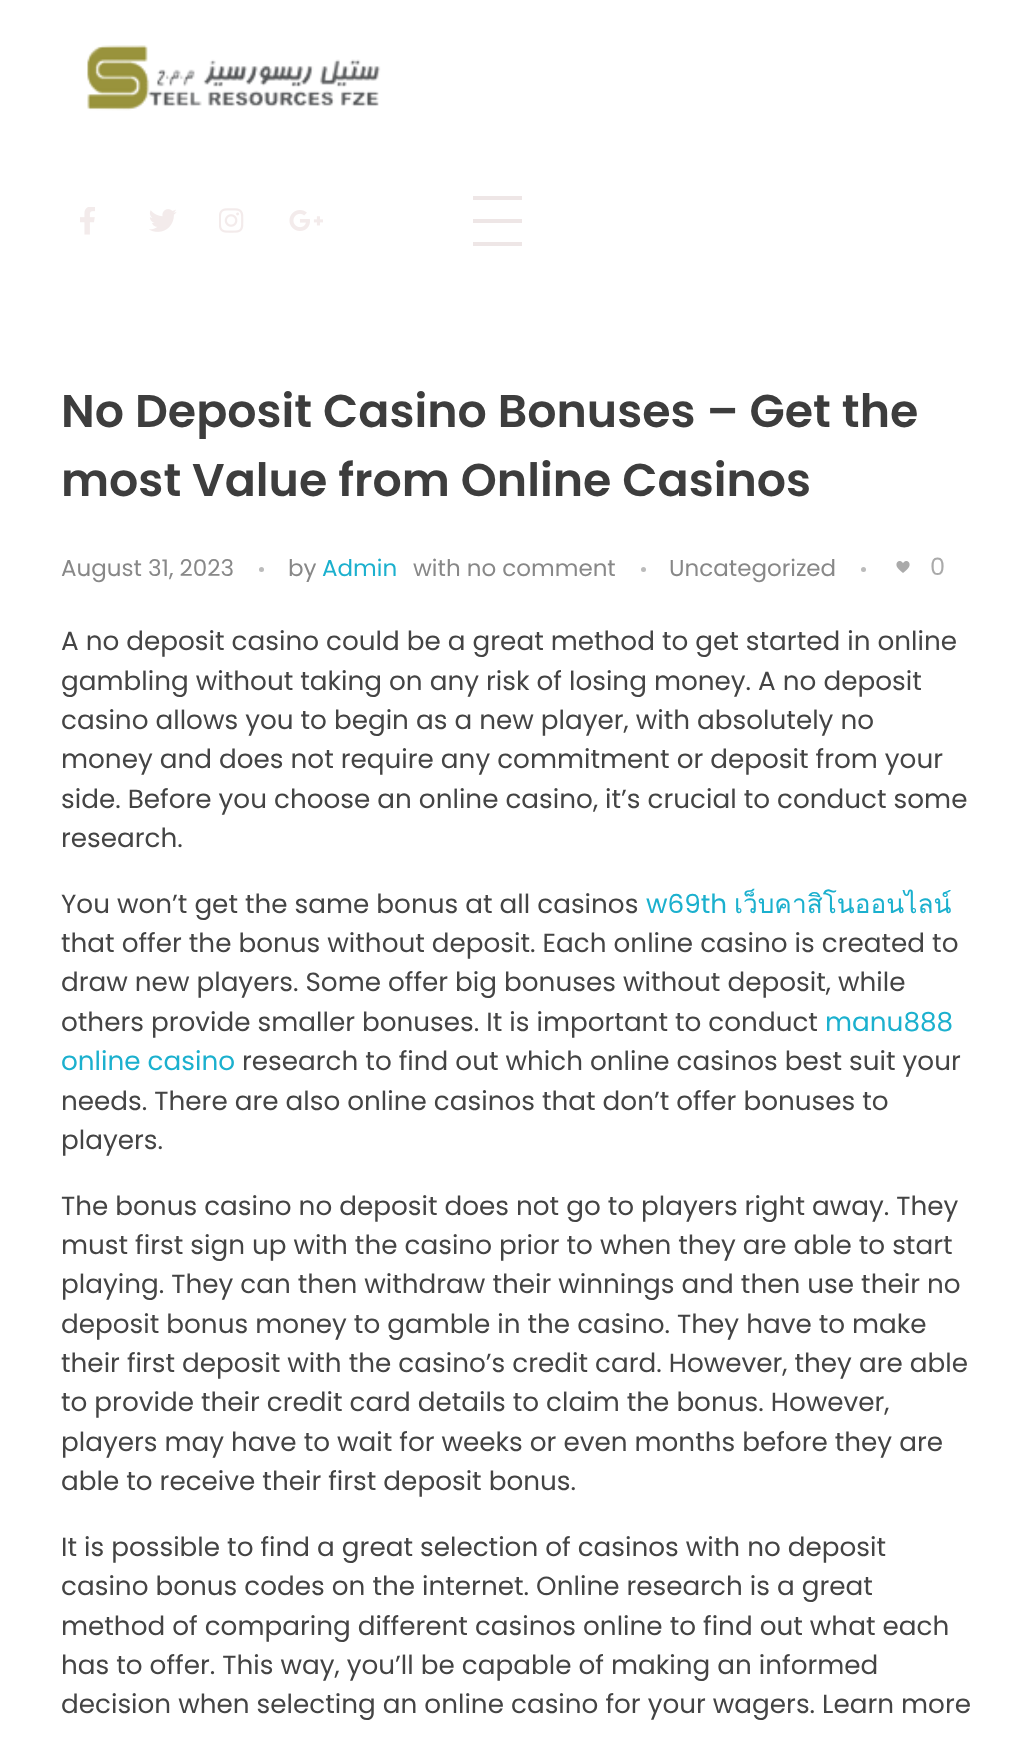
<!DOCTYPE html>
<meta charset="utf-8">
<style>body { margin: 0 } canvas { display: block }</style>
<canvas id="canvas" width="1031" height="1745"></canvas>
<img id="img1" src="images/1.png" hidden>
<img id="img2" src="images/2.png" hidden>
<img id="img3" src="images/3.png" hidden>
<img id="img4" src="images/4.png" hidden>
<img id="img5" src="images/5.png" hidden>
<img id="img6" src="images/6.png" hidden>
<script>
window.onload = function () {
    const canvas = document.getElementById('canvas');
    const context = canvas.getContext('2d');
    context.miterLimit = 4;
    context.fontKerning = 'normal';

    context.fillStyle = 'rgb(255, 255, 255)';
    context.fillRect(0, 0, 1031, 1745);
    context.drawImage(document.getElementById('img1'), 87, 45, 294, 66);
    context.drawImage(document.getElementById('img2'), 80, 207, 15, 28);
    context.drawImage(document.getElementById('img3'), 149, 209, 28, 23);
    context.drawImage(document.getElementById('img4'), 219, 208, 25, 25);
    context.drawImage(document.getElementById('img5'), 289, 210, 34, 21);
    context.fillStyle = 'rgb(238, 230, 230)';
    context.fillRect(473, 196, 49, 4);
    context.fillRect(473, 219, 49, 4);
    context.fillRect(473, 242, 49, 4);
    context.fillStyle = 'rgb(187, 187, 187)';
    context.beginPath();
    context.arc(261.5, 569.5, 2.5, 0, 2 * Math.PI);
    context.fill();
    context.beginPath();
    context.arc(643.5, 569.5, 2.5, 0, 2 * Math.PI);
    context.fill();
    context.beginPath();
    context.arc(863.5, 569.5, 2.5, 0, 2 * Math.PI);
    context.fill();
    context.drawImage(document.getElementById('img6'), 896, 561, 14, 12);
    context.font = '600 45.9px Poppins';
    context.fillStyle = 'rgb(61, 61, 61)';
    context.fillText('No Deposit Casino Bonuses – Get the', 61, 427);
    context.fillText('most Value from Online Casinos', 61, 496);
    context.font = '23px Poppins';
    context.fillStyle = 'rgb(136, 136, 136)';
    context.fillText('August 31, 2023', 61, 576);
    context.fillText('by', 288, 576);
    context.fillStyle = 'rgb(27, 176, 206)';
    context.fillText('Admin', 322, 576);
    context.fillStyle = 'rgb(136, 136, 136)';
    context.fillText('with no comment', 413, 576);
    context.fillText('Uncategorized', 669, 576);
    context.font = '24px Poppins';
    context.fillStyle = 'rgb(170, 170, 170)';
    context.fillText('0', 930, 575);
    context.font = '26.25px Poppins';
    context.fillStyle = 'rgb(68, 68, 68)';
    context.fillText('A no deposit casino could be a great method to get started in online', 61, 650);
    context.fillText('gambling without taking on any risk of losing money. A no deposit', 61, 690);
    context.fillText('casino allows you to begin as a new player, with absolutely no', 61, 729);
    context.fillText('money and does not require any commitment or deposit from your', 61, 768);
    context.fillText('side. Before you choose an online casino, it’s crucial to conduct some', 61, 808);
    context.fillText('research.', 61, 847);
    context.fillText('You won’t get the same bonus at all casinos', 61, 913);
    context.fillStyle = 'rgb(27, 176, 206)';
    context.fillText('w69th', 646, 913);
    context.font = '26.25px Loma';
    context.fillText('เว็บคาสิโนออนไลน์', 734, 913);
    context.font = '26.25px Poppins';
    context.fillStyle = 'rgb(68, 68, 68)';
    context.fillText('that offer the bonus without deposit. Each online casino is created to', 61, 952);
    context.fillText('draw new players. Some offer big bonuses without deposit, while', 61, 991);
    context.fillText('others provide smaller bonuses. It is important to conduct', 61, 1031);
    context.fillStyle = 'rgb(27, 176, 206)';
    context.fillText('manu888', 825, 1031);
    context.fillText('online casino', 61, 1070);
    context.fillStyle = 'rgb(68, 68, 68)';
    context.fillText('research to find out which online casinos best suit your', 242, 1070);
    context.fillText('needs. There are also online casinos that don’t offer bonuses to', 61, 1110);
    context.fillText('players.', 61, 1149);
    context.fillText('The bonus casino no deposit does not go to players right away. They', 61, 1215);
    context.fillText('must first sign up with the casino prior to when they are able to start', 61, 1254);
    context.fillText('playing. They can then withdraw their winnings and then use their no', 61, 1293);
    context.fillText('deposit bonus money to gamble in the casino. They have to make', 61, 1333);
    context.fillText('their first deposit with the casino’s credit card. However, they are able', 61, 1372);
    context.fillText('to provide their credit card details to claim the bonus. However,', 61, 1411);
    context.fillText('players may have to wait for weeks or even months before they are', 61, 1451);
    context.fillText('able to receive their first deposit bonus.', 61, 1490);
    context.fillText('It is possible to find a great selection of casinos with no deposit', 61, 1556);
    context.fillText('casino bonus codes on the internet. Online research is a great', 61, 1595);
    context.fillText('method of comparing different casinos online to find out what each', 61, 1635);
    context.fillText('has to offer. This way, you’ll be capable of making an informed', 61, 1674);
    context.fillText('decision when selecting an online casino for your wagers. Learn more', 61, 1713);
};
</script>
